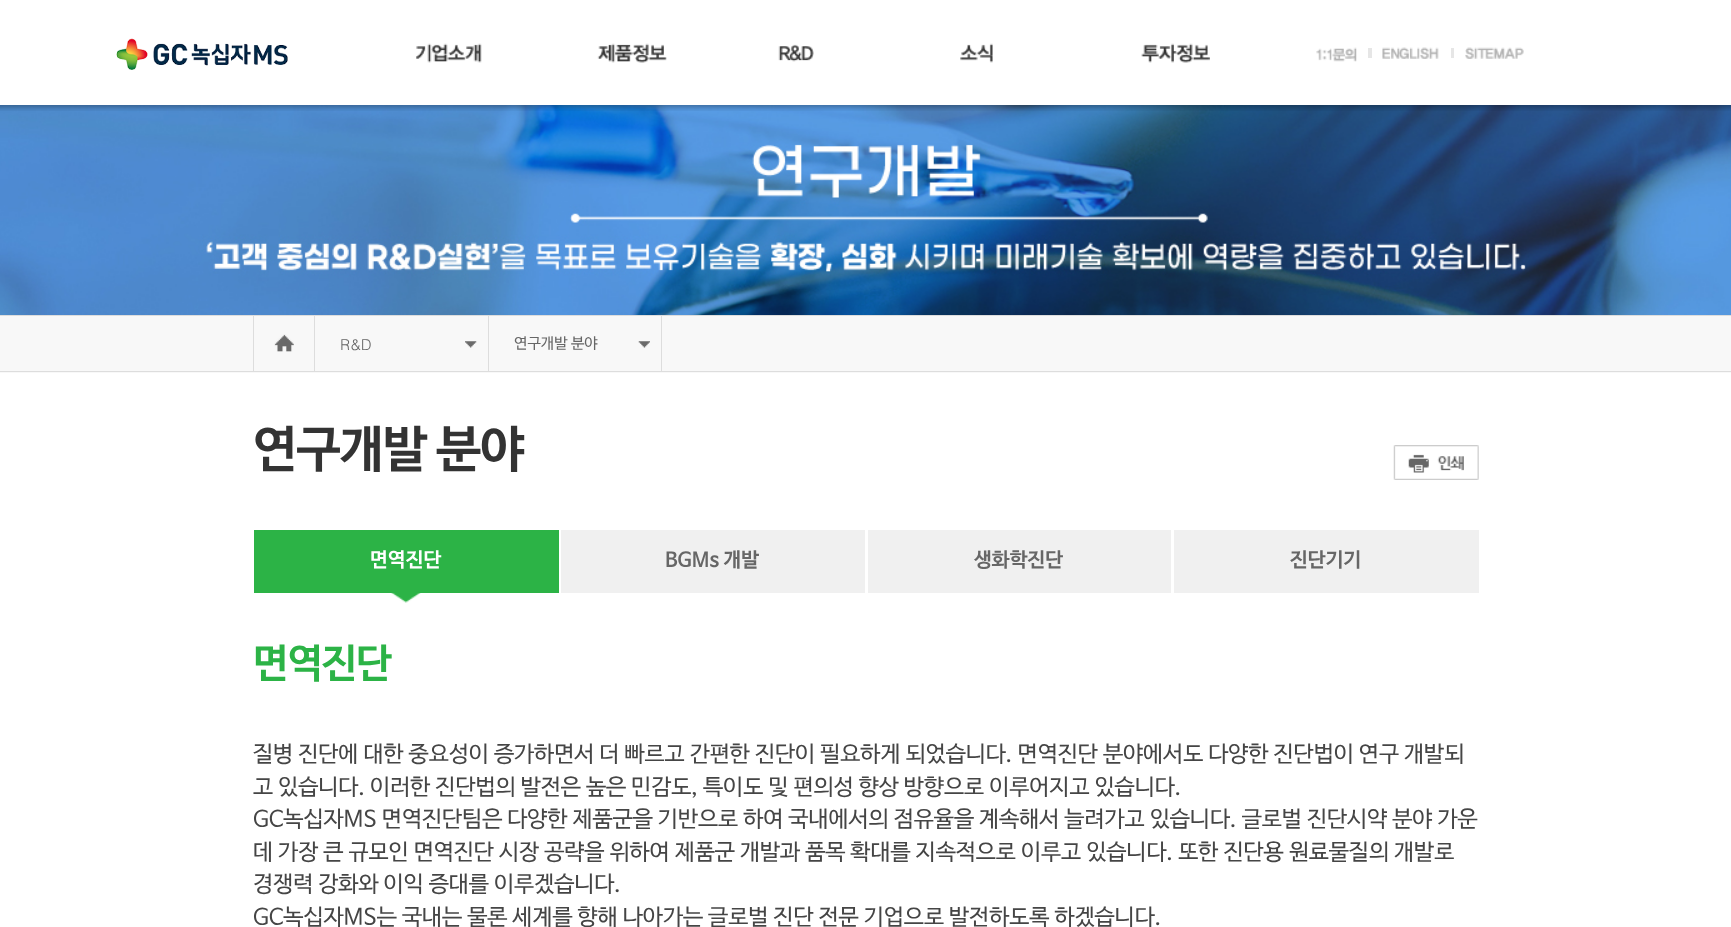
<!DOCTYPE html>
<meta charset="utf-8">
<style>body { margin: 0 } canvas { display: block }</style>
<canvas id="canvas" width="1731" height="927"></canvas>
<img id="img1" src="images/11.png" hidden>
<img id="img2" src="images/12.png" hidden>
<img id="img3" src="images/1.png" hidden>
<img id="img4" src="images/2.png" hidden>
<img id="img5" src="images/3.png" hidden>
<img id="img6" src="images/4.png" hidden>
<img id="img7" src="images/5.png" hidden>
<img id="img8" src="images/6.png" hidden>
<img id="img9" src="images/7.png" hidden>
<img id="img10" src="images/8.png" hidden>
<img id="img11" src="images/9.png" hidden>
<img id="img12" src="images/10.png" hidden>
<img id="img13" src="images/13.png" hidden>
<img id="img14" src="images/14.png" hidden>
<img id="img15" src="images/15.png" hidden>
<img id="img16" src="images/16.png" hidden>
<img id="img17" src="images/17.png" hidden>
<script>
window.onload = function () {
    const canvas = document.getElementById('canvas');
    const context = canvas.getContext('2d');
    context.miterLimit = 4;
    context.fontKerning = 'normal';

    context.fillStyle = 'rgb(255, 255, 255)';
    context.fillRect(0, 0, 1731, 927);
    context.drawImage(document.getElementById('img1'), 0, 105, 1731, 210);
    context.drawImage(document.getElementById('img2'), 205, 105, 1412, 210);
    context.drawImage(document.getElementById('img3'), 0, 105, 1731, 6);
    context.drawImage(document.getElementById('img4'), 116, 38, 172, 32);
    context.drawImage(document.getElementById('img5'), 416, 43, 66, 20);
    context.drawImage(document.getElementById('img6'), 597, 43, 70, 20);
    context.drawImage(document.getElementById('img7'), 778, 44, 36, 18);
    context.drawImage(document.getElementById('img8'), 960, 43, 33, 20);
    context.drawImage(document.getElementById('img9'), 1141, 43, 69, 20);
    context.drawImage(document.getElementById('img10'), 1316, 47, 41, 15);
    context.fillStyle = 'rgb(230, 230, 230)';
    context.fillRect(1368, 48, 4, 10);
    context.drawImage(document.getElementById('img11'), 1382, 47, 57, 12);
    context.fillRect(1451, 48, 3, 10);
    context.drawImage(document.getElementById('img12'), 1465, 47, 59, 12);
    context.fillStyle = 'rgb(248, 248, 248)';
    context.fillRect(0, 316, 1731, 57);
    context.fillStyle = 'rgb(221, 221, 221)';
    context.fillRect(0, 315, 1731, 1);
    context.fillRect(0, 371, 1731, 1);
    context.fillRect(253, 316, 1, 55);
    context.fillRect(314, 316, 1, 55);
    context.drawImage(document.getElementById('img13'), 274, 334, 20, 18);
    context.fillRect(488, 316, 1, 55);
    context.drawImage(document.getElementById('img14'), 465, 341, 12, 7);
    context.fillRect(661, 316, 1, 55);
    context.drawImage(document.getElementById('img15'), 638, 341, 12, 7);
    context.drawImage(document.getElementById('img16'), 1393, 445, 86, 35);
    context.drawImage(document.getElementById('img17'), 391, 593, 30, 10);
    context.fillStyle = 'rgb(44, 179, 70)';
    context.fillRect(254, 530, 305, 63);
    context.fillStyle = 'rgb(240, 240, 240)';
    context.fillRect(561, 530, 304, 63);
    context.fillRect(868, 530, 303, 63);
    context.fillRect(1174, 530, 305, 63);
    context.font = '15px Dotum';
    context.fillStyle = 'rgb(102, 102, 102)';
    context.fillText('R&D', 340, 350);
    context.font = '15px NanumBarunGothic';
    context.fillText('연구개발 분야', 514, 348);
    context.letterSpacing = '-1.25px';
    context.font = 'bold 50px NanumBarunGothic';
    context.fillStyle = 'rgb(51, 51, 51)';
    context.fillText('연구개발 분야', 253, 465);
    context.letterSpacing = '0px';
    context.font = 'bold 20px NanumBarunGothic';
    context.fillStyle = 'rgb(255, 255, 255)';
    context.fillText('면역진단', 370, 566);
    context.fillStyle = 'rgb(102, 102, 102)';
    context.fillText('BGMs 개발', 665, 566);
    context.fillText('생화학진단', 974, 566);
    context.fillText('진단기기', 1290, 566);
    context.letterSpacing = '-1.25px';
    context.font = 'bold 40px NanumBarunGothic';
    context.fillStyle = 'rgb(44, 179, 70)';
    context.fillText('면역진단', 253, 676);
    context.letterSpacing = '0px';
    context.font = '22.5px NanumBarunGothic';
    context.fillStyle = 'rgb(69, 69, 69)';
    context.fillText('질병 진단에 대한 중요성이 증가하면서 더 빠르고 간편한 진단이 필요하게 되었습니다. 면역진단 분야에서도 다양한 진단법이 연구 개발되', 253, 761);
    context.fillText('고 있습니다. 이러한 진단법의 발전은 높은 민감도, 특이도 및 편의성 향상 방향으로 이루어지고 있습니다.', 253, 794);
    context.fillText('GC녹십자MS 면역진단팀은 다양한 제품군을 기반으로 하여 국내에서의 점유율을 계속해서 늘려가고 있습니다. 글로벌 진단시약 분야 가운', 253, 826);
    context.fillText('데 가장 큰 규모인 면역진단 시장 공략을 위하여 제품군 개발과 품목 확대를 지속적으로 이루고 있습니다. 또한 진단용 원료물질의 개발로', 253, 859);
    context.fillText('경쟁력 강화와 이익 증대를 이루겠습니다.', 253, 891);
    context.fillText('GC녹십자MS는 국내는 물론 세계를 향해 나아가는 글로벌 진단 전문 기업으로 발전하도록 하겠습니다.', 253, 924);
};
</script>
